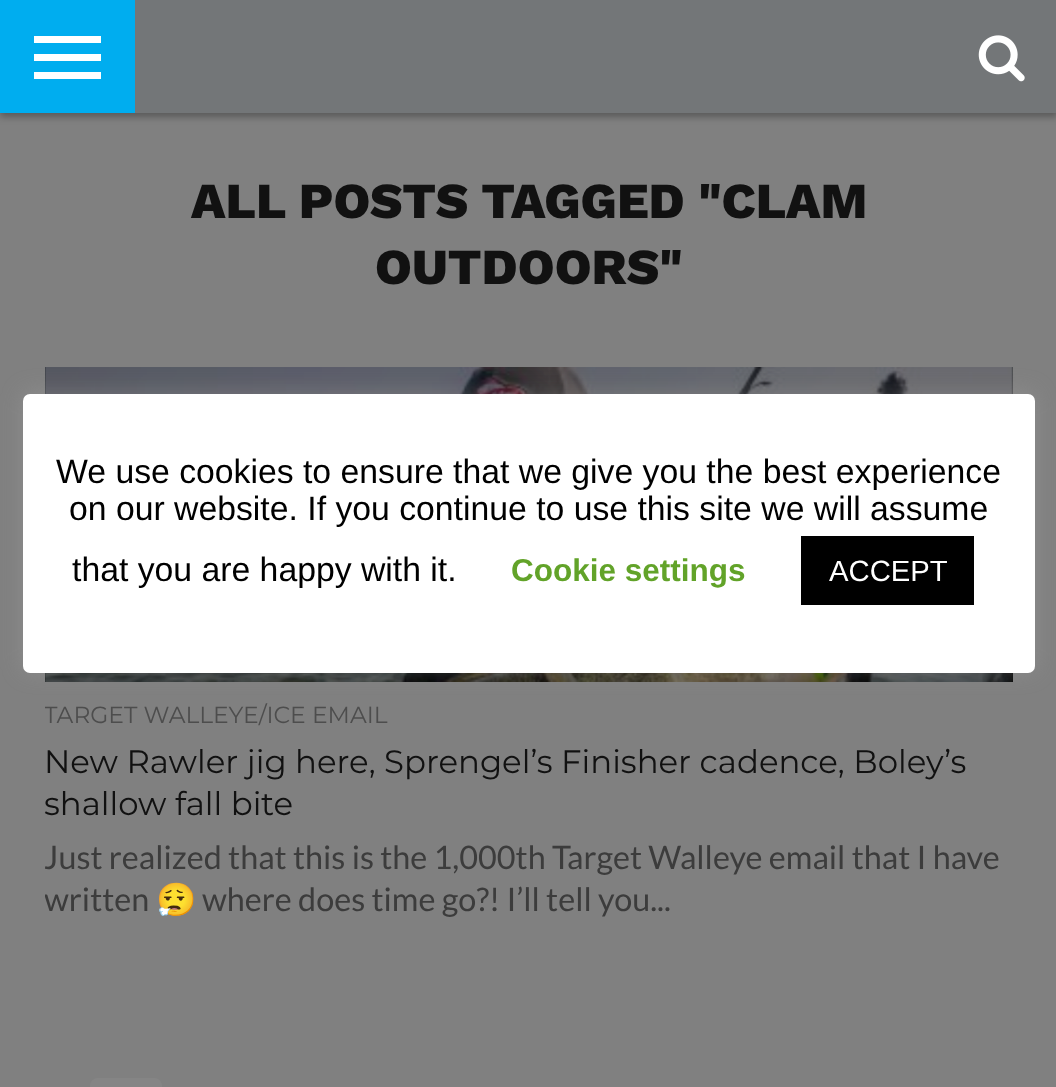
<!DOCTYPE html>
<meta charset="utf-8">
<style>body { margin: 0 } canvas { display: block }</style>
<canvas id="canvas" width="1056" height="1087"></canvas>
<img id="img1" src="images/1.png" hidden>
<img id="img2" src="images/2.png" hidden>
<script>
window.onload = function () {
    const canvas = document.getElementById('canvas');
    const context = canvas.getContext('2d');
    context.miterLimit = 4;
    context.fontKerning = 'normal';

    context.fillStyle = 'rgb(128, 128, 128)';
    context.fillRect(0, 0, 1056, 1087);
    context.fillStyle = 'rgba(0, 0, 0, 0.3)';
    context.filter = 'blur(3.5px)';
    context.beginPath();
    context.rect(0, 5, 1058, 112);
    context.fill();
    context.filter = 'none';
    context.fillStyle = 'rgb(115, 118, 120)';
    context.fillRect(135, 0, 921, 113);
    context.fillStyle = 'rgb(0, 173, 239)';
    context.fillRect(0, 0, 135, 113);
    context.fillStyle = 'rgb(255, 255, 255)';
    context.fillRect(34, 36, 67, 7);
    context.fillRect(34, 54, 67, 7);
    context.fillRect(34, 72, 67, 7);
    context.drawImage(document.getElementById('img1'), 978, 35, 47, 47);
    context.fillStyle = 'rgb(0, 0, 0)';
    context.fillRect(45, 367, 968, 315);
    context.drawImage(document.getElementById('img2'), 45, 367, 968, 315);
    context.fillStyle = 'rgba(172, 171, 171, 0.3)';
    context.filter = 'blur(11px)';
    context.beginPath();
    context.roundRect(23, 392, 1012, 279, 7);
    context.fill();
    context.filter = 'none';
    context.fillStyle = 'rgb(255, 255, 255)';
    context.beginPath();
    context.roundRect(23, 394, 1012, 279, 7);
    context.fill();
    context.fillStyle = 'rgb(0, 0, 0)';
    context.fillRect(801, 536, 173, 69);
    context.fillStyle = 'rgb(133, 133, 133)';
    context.beginPath();
    context.roundRect(90, 1078, 72, 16, 8);
    context.fill();
    context.font = '800 50.4px Work Sans';
    context.fillStyle = 'rgb(17, 17, 17)';
    context.fillText('ALL POSTS TAGGED "CLAM', 191, 218);
    context.fillText('OUTDOORS"', 375, 284);
    context.save();
    context.beginPath();
    context.rect(45, 367, 968, 675);
    context.clip();
    context.font = '23.4px Montserrat';
    context.fillStyle = 'rgb(77, 77, 77)';
    context.fillText('TARGET WALLEYE/ICE EMAIL', 44, 723);
    context.restore();
    context.font = '32.4px Montserrat';
    context.fillText('New Rawler jig here, Sprengel’s Finisher cadence, Boley’s', 44, 773);
    context.fillText('shallow fall bite', 44, 815);
    context.font = '32.4px Lato';
    context.fillStyle = 'rgb(60, 60, 60)';
    context.fillText('Just realized that this is the 1,000th Target Walleye email that I have', 44, 869);
    context.save();
    context.beginPath();
    context.rect(45, 367, 968, 675);
    context.clip();
    context.fillText('written', 44, 911);
    context.restore();
    context.font = '32.4px Noto Color Emoji';
    context.fillText('😮‍💨', 156, 911);
    context.font = '32.4px Lato';
    context.fillText('where does time go?! I’ll tell you...', 202, 911);
    context.font = '33.75px Liberation Sans';
    context.fillStyle = 'rgb(0, 0, 0)';
    context.fillText('We use cookies to ensure that we give you the best experience', 56, 483);
    context.fillText('on our website. If you continue to use this site we will assume', 69, 520);
    context.fillText('that you are happy with it.', 72, 581);
    context.font = 'bold 31.5px Liberation Sans';
    context.fillStyle = 'rgb(98, 163, 41)';
    context.fillText('Cookie settings', 511, 581);
    context.font = '29.25px Liberation Sans';
    context.fillStyle = 'rgb(255, 255, 255)';
    context.fillText('ACCEPT', 829, 581);
};
</script>
